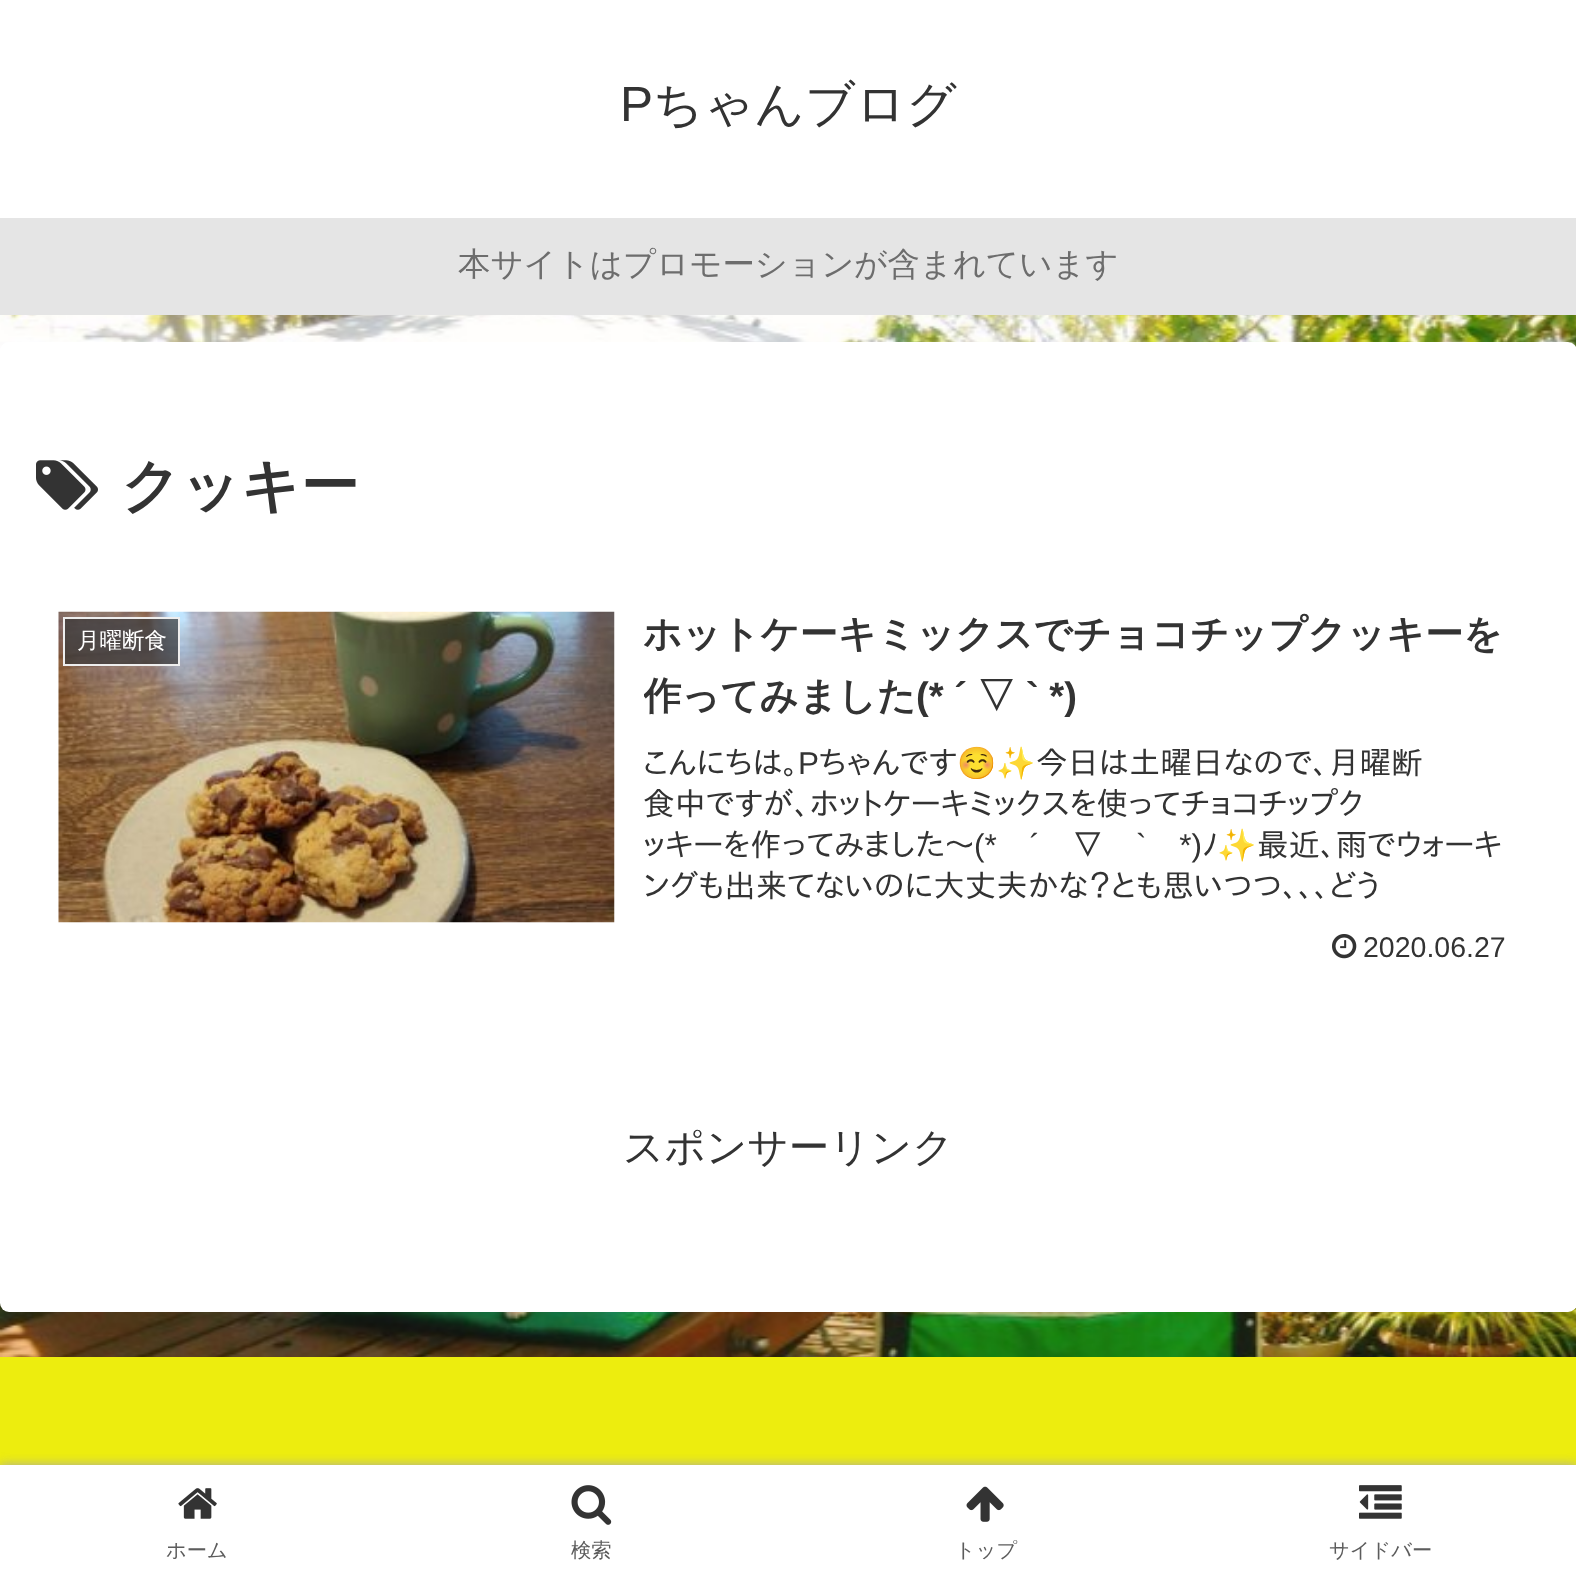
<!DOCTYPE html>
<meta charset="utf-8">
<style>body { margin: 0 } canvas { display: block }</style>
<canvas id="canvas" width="1576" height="1576"></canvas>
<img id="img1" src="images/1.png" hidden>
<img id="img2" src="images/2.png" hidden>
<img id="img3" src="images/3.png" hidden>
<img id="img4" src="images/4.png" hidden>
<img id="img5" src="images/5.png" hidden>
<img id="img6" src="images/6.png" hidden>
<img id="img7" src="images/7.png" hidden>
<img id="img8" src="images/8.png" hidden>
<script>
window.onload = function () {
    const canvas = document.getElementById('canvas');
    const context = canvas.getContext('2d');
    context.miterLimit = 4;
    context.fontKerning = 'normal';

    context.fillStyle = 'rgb(255, 255, 255)';
    context.fillRect(0, 0, 1576, 1576);
    context.drawImage(document.getElementById('img1'), 0, 315, 1576, 1042);
    context.fillStyle = 'rgb(229, 229, 229)';
    context.fillRect(0, 218, 1576, 97);
    context.fillStyle = 'rgb(255, 255, 255)';
    context.beginPath();
    context.roundRect(0, 342, 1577, 970, 9);
    context.fill();
    context.drawImage(document.getElementById('img2'), 36, 460, 62, 50);
    context.drawImage(document.getElementById('img3'), 58, 611, 557, 312);
    context.fillStyle = 'rgba(51, 51, 51, 0.7)';
    context.beginPath();
    context.rect(64, 618, 115, 47);
    context.fill();
    context.strokeStyle = 'rgb(238, 238, 238)';
    context.lineWidth = 2;
    context.stroke();
    context.drawImage(document.getElementById('img4'), 1332, 934, 25, 25);
    context.fillStyle = 'rgb(237, 237, 14)';
    context.fillRect(0, 1357, 1576, 108);
    context.fillStyle = 'rgb(169, 169, 169)';
    context.filter = 'blur(5.5px)';
    context.beginPath();
    context.rect(0, 1465, 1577, 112);
    context.fill();
    context.filter = 'none';
    context.fillStyle = 'rgb(255, 255, 255)';
    context.fillRect(0, 1465, 1576, 111);
    context.drawImage(document.getElementById('img5'), 178, 1488, 39, 31);
    context.drawImage(document.getElementById('img6'), 571, 1485, 41, 40);
    context.drawImage(document.getElementById('img7'), 966, 1486, 38, 36);
    context.drawImage(document.getElementById('img8'), 1359, 1485, 43, 34);
    context.font = '49.5px Liberation Sans';
    context.fillStyle = 'rgb(51, 51, 51)';
    context.fillText('P', 620, 121);
    context.font = '500 49.5px WenQuanYi Zen Hei';
    context.fillText('ちゃんブログ', 653, 121);
    context.font = '500 32.4px WenQuanYi Zen Hei';
    context.fillStyle = 'rgb(109, 109, 109)';
    context.fillText('本サイトはプロモーションが含まれています', 458, 275);
    context.font = 'bold 58.5px WenQuanYi Zen Hei';
    context.fillStyle = 'rgb(51, 51, 51)';
    context.fillText('クッキー', 121, 506);
    context.font = '500 22.5px WenQuanYi Zen Hei';
    context.fillStyle = 'rgb(255, 255, 255)';
    context.fillText('月曜断食', 77, 648);
    context.font = 'bold 38.25px WenQuanYi Zen Hei';
    context.fillStyle = 'rgb(51, 51, 51)';
    context.fillText('ホットケーキミックスでチョコチップクッキーを', 643, 647);
    context.save();
    context.beginPath();
    context.rect(644, 605, 875, 122);
    context.clip();
    context.fillText('作ってみました', 643, 709);
    context.restore();
    context.font = 'bold 38.25px Liberation Sans';
    context.fillText('(* ´', 916, 709);
    context.font = 'bold 38.25px WenQuanYi Zen Hei';
    context.fillText('▽', 977, 709);
    context.font = 'bold 38.25px Liberation Sans';
    context.fillText('` *)', 1026, 709);
    context.font = '31.5px IPAPGothic';
    context.fillText('こんにちは。', 643, 774);
    context.font = '31.5px Liberation Sans';
    context.fillText('P', 798, 774);
    context.font = '31.5px IPAPGothic';
    context.fillText('ちゃんです', 819, 774);
    context.font = '31.5px Noto Color Emoji';
    context.fillText('☺️✨', 957, 774);
    context.font = '31.5px IPAPGothic';
    context.fillText('今日は土曜日なので、月曜断', 1036, 774);
    context.fillText('食中ですが、ホットケーキミックスを使ってチョコチップク', 643, 815);
    context.fillText('ッキーを作ってみました～', 643, 856);
    context.wordSpacing = '24px';
    context.font = '31.5px Liberation Sans';
    context.fillText('(* ´', 974, 856);
    context.wordSpacing = '0px';
    context.font = '31.5px IPAPGothic';
    context.fillText('▽', 1072, 856);
    context.wordSpacing = '24px';
    context.font = '31.5px Liberation Sans';
    context.fillText('` *)', 1136, 856);
    context.wordSpacing = '0px';
    context.font = '31.5px IPAPGothic';
    context.fillText('ﾉ', 1202, 856);
    context.font = '31.5px Noto Color Emoji';
    context.fillText('✨', 1217, 856);
    context.font = '31.5px IPAPGothic';
    context.fillText('最近、雨でウォーキ', 1257, 856);
    context.fillText('ングも出来てないのに大丈夫かな？とも思いつつ、、、どう', 643, 897);
    context.font = '28.5px Liberation Sans';
    context.fillText('2020.06.27', 1363, 957);
    context.font = '500 40.5px WenQuanYi Zen Hei';
    context.fillText('スポンサーリンク', 623, 1161);
    context.font = '500 20.25px WenQuanYi Zen Hei';
    context.fillStyle = 'rgb(92, 92, 92)';
    context.fillText('ホーム', 166, 1557);
    context.fillText('検索', 571, 1557);
    context.fillText('トップ', 955, 1557);
    context.fillText('サイドバー', 1329, 1557);
};
</script>
